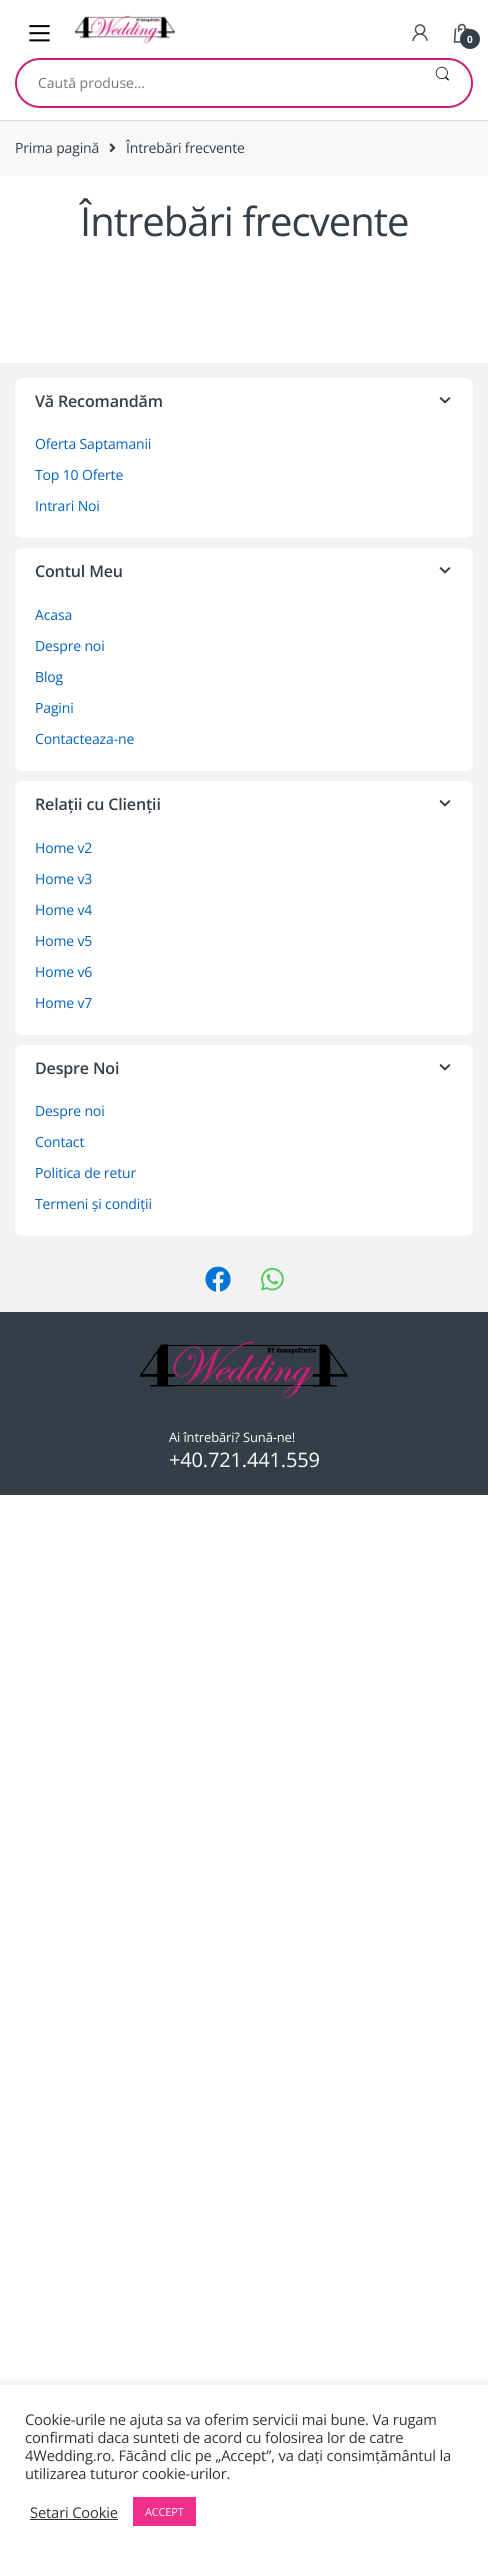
#include <cairo.h>
#include <math.h>
#include <stddef.h>

static cairo_t *ctx;

static void use_color(int r, int g, int b) {
    cairo_set_source_rgb(ctx, r / 255.0, g / 255.0, b / 255.0);
}

static void spaced_text(double x, double y, const char *s, double letter, double word) {
    cairo_move_to(ctx, x, y);
    while (*s) {
        char ch[5] = {0};
        int n = 0;
        do ch[n++] = *s++; while ((*s & 0xC0) == 0x80);
        cairo_show_text(ctx, ch);
        cairo_rel_move_to(ctx, letter + word * (*ch == ' '), 0);
    }
}

static void round_rect(double x, double y, double w, double h, double r) {
    cairo_new_sub_path(ctx);
    cairo_arc(ctx, x + w - r, y + h - r, r, 0, M_PI / 2);
    cairo_arc(ctx, x + r, y + h - r, r, M_PI / 2, M_PI);
    cairo_arc(ctx, x + r, y + r, r, M_PI, 1.5 * M_PI);
    cairo_arc(ctx, x + w - r, y + r, r, 1.5 * M_PI, 2 * M_PI);
    cairo_close_path(ctx);
}

static void shadow(double x, double y, double w, double h, double r, double blur, double alpha) {
    cairo_push_group_with_content(ctx, CAIRO_CONTENT_ALPHA);
    cairo_set_operator(ctx, CAIRO_OPERATOR_SOURCE);
    for (int i = 15; i >= -15 && fmin(w, h) + blur * i / 3 > 0; i -= 2) {
        double e = blur * i / 6;
        cairo_set_source_rgba(ctx, 0, 0, 0, alpha * erfc((i - 1) / 8.5) / 2);
        round_rect(x - e, y - e, w + 2 * e, h + 2 * e, fmax(0, fmin(r + e + blur * .6, fmin(w, h) / 2 + e)));
        cairo_fill(ctx);
    }
    cairo_pattern_t *soft = cairo_pop_group(ctx);
    cairo_mask(ctx, soft);
    cairo_pattern_destroy(soft);
}

static void picture(const char *path, double x, double y, double w, double h) {
    cairo_surface_t *image = cairo_image_surface_create_from_png(path);
    cairo_save(ctx);
    cairo_set_source_surface(ctx, image, x, y);
    cairo_rectangle(ctx, x, y, w, h);
    cairo_fill(ctx);
    cairo_restore(ctx);
    cairo_surface_destroy(image);
}

int main(void) {
    cairo_surface_t *surface = cairo_image_surface_create(CAIRO_FORMAT_RGB24, 488, 2556);
    ctx = cairo_create(surface);
    cairo_font_options_t *options = cairo_font_options_create();
    cairo_font_options_set_hint_metrics(options, CAIRO_HINT_METRICS_OFF);
    cairo_font_options_set_hint_style(options, CAIRO_HINT_STYLE_NONE);
    cairo_set_font_options(ctx, options);
    cairo_set_miter_limit(ctx, 4);
    use_color(255, 255, 255);
    cairo_paint(ctx);
    use_color(221, 221, 221);
    cairo_rectangle(ctx, 0, 120, 488, 1);
    cairo_fill(ctx);
    picture("img1.png", 29, 25, 21, 17);
    picture("img2.png", 75, 15, 100, 29);
    picture("img3.png", 412, 24, 16, 18);
    picture("img4.png", 453, 23, 16, 20);
    use_color(51, 62, 72);
    cairo_arc(ctx, 470, 39, 10, 0, 2 * M_PI);
    cairo_fill(ctx);
    cairo_select_font_face(ctx, "Open Sans", CAIRO_FONT_SLANT_NORMAL, CAIRO_FONT_WEIGHT_BOLD);
    cairo_set_font_size(ctx, 10);
    use_color(255, 255, 255);
    spaced_text(467, 43, "0", -0.15, 0);
    round_rect(16, 59, 456, 48, 24);
    use_color(206, 29, 118);
    cairo_stroke(ctx);
    picture("img5.png", 435, 66, 14, 15);
    cairo_select_font_face(ctx, "Open Sans", CAIRO_FONT_SLANT_NORMAL, CAIRO_FONT_WEIGHT_NORMAL);
    cairo_set_font_size(ctx, 14);
    use_color(117, 117, 117);
    cairo_move_to(ctx, 38, 88);
    cairo_show_text(ctx, "Caută produse…");
    use_color(248, 248, 248);
    cairo_rectangle(ctx, 0, 121, 488, 55);
    cairo_fill(ctx);
    use_color(51, 62, 72);
    spaced_text(15, 153, "Prima pagină", -0.15, 0);
    picture("img6.png", 109, 143, 7, 10);
    spaced_text(126, 153, "Întrebări frecvente", -0.15, 0);
    cairo_set_font_size(ctx, 40);
    spaced_text(80, 236, "Întrebări frecvente", -1, 0);
    use_color(242, 242, 242);
    cairo_rectangle(ctx, 0, 363, 488, 949);
    cairo_fill(ctx);
    use_color(255, 255, 255);
    round_rect(15, 378, 458, 160, 7);
    cairo_fill(ctx);
    cairo_select_font_face(ctx, "Open Sans SemiBold", CAIRO_FONT_SLANT_NORMAL, CAIRO_FONT_WEIGHT_NORMAL);
    cairo_set_font_size(ctx, 16);
    use_color(51, 62, 72);
    spaced_text(35, 407, "Vă Recomandăm", -0.15, 0);
    picture("img7.png", 439, 397, 12, 7);
    cairo_select_font_face(ctx, "Open Sans", CAIRO_FONT_SLANT_NORMAL, CAIRO_FONT_WEIGHT_NORMAL);
    cairo_set_font_size(ctx, 14);
    use_color(0, 98, 189);
    spaced_text(35, 449, "Oferta Saptamanii", -0.15, 0);
    spaced_text(35, 480, "Top 10 Oferte", -0.15, 0);
    spaced_text(35, 511, "Intrari Noi", -0.15, 0);
    use_color(255, 255, 255);
    round_rect(15, 548, 458, 223, 7);
    cairo_fill(ctx);
    cairo_select_font_face(ctx, "Open Sans SemiBold", CAIRO_FONT_SLANT_NORMAL, CAIRO_FONT_WEIGHT_NORMAL);
    cairo_set_font_size(ctx, 16);
    use_color(51, 62, 72);
    spaced_text(35, 577, "Contul Meu", -0.15, 0);
    picture("img7.png", 439, 567, 12, 7);
    cairo_select_font_face(ctx, "Open Sans", CAIRO_FONT_SLANT_NORMAL, CAIRO_FONT_WEIGHT_NORMAL);
    cairo_set_font_size(ctx, 14);
    use_color(0, 98, 189);
    spaced_text(35, 620, "Acasa", -0.15, 0);
    spaced_text(35, 651, "Despre noi", -0.15, 0);
    spaced_text(35, 682, "Blog", -0.15, 0);
    spaced_text(35, 713, "Pagini", -0.15, 0);
    spaced_text(35, 744, "Contacteaza-ne", -0.15, 0);
    use_color(255, 255, 255);
    round_rect(15, 781, 458, 254, 7);
    cairo_fill(ctx);
    cairo_select_font_face(ctx, "Open Sans SemiBold", CAIRO_FONT_SLANT_NORMAL, CAIRO_FONT_WEIGHT_NORMAL);
    cairo_set_font_size(ctx, 16);
    use_color(51, 62, 72);
    spaced_text(35, 810, "Relații cu Clienții", -0.15, 0);
    picture("img7.png", 439, 800, 12, 7);
    cairo_select_font_face(ctx, "Open Sans", CAIRO_FONT_SLANT_NORMAL, CAIRO_FONT_WEIGHT_NORMAL);
    cairo_set_font_size(ctx, 14);
    use_color(0, 98, 189);
    spaced_text(35, 853, "Home v2", -0.15, 0);
    spaced_text(35, 884, "Home v3", -0.15, 0);
    spaced_text(35, 915, "Home v4", -0.15, 0);
    spaced_text(35, 946, "Home v5", -0.15, 0);
    spaced_text(35, 977, "Home v6", -0.15, 0);
    spaced_text(35, 1008, "Home v7", -0.15, 0);
    use_color(255, 255, 255);
    round_rect(15, 1045, 458, 191, 7);
    cairo_fill(ctx);
    cairo_select_font_face(ctx, "Open Sans SemiBold", CAIRO_FONT_SLANT_NORMAL, CAIRO_FONT_WEIGHT_NORMAL);
    cairo_set_font_size(ctx, 16);
    use_color(51, 62, 72);
    spaced_text(35, 1074, "Despre Noi", -0.15, 0);
    picture("img7.png", 439, 1064, 12, 7);
    cairo_select_font_face(ctx, "Open Sans", CAIRO_FONT_SLANT_NORMAL, CAIRO_FONT_WEIGHT_NORMAL);
    cairo_set_font_size(ctx, 14);
    use_color(0, 98, 189);
    spaced_text(35, 1116, "Despre noi", -0.15, 0);
    spaced_text(35, 1147, "Contact", -0.15, 0);
    spaced_text(35, 1178, "Politica de retur", -0.15, 0);
    spaced_text(35, 1209, "Termeni și condiții", -0.15, 0);
    picture("img8.png", 205, 1266, 26, 26);
    picture("img9.png", 261, 1267, 23, 24);
    use_color(51, 62, 72);
    cairo_rectangle(ctx, 0, 1312, 488, 183);
    cairo_fill(ctx);
    picture("img10.png", 140, 1341, 208, 57);
    cairo_set_font_size(ctx, 13);
    use_color(255, 255, 255);
    spaced_text(169, 1442, "Ai întrebări? Sună-ne!", -0.15, 0);
    cairo_set_font_size(ctx, 20);
    spaced_text(169, 1467, "+40.721.441.559", -0.15, 0);
    cairo_save(ctx);
    cairo_rectangle(ctx, 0, 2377, 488, 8);
    cairo_clip(ctx);
    use_color(172, 171, 171);
    shadow(0, 2384, 488, 171, 0, 5, 0.3);
    cairo_restore(ctx);
    cairo_set_font_size(ctx, 14.7);
    use_color(51, 51, 51);
    spaced_text(25, 2425, "Cookie-urile ne ajuta sa va oferim servicii mai bune. Va rugam", -0.15, 0);
    spaced_text(25, 2443, "confirmati daca sunteti de acord cu folosirea lor de catre", -0.15, 0);
    spaced_text(25, 2461, "4Wedding.ro. Făcând clic pe „Accept”, va dați consimțământul la", -0.15, 0);
    spaced_text(25, 2479, "utilizarea tuturor cookie-urilor.", -0.15, 0);
    spaced_text(30, 2518, "Setari Cookie", -0.15, 0);
    cairo_rectangle(ctx, 30, 2519, 88, 1);
    cairo_fill(ctx);
    use_color(239, 47, 137);
    cairo_rectangle(ctx, 133, 2497, 63, 29);
    cairo_fill(ctx);
    cairo_set_font_size(ctx, 11);
    use_color(255, 255, 255);
    spaced_text(145, 2516, "ACCEPT", -0.15, 0);
    cairo_surface_write_to_png(surface, "result.png");
    cairo_font_options_destroy(options);
    cairo_destroy(ctx);
    cairo_surface_destroy(surface);
    return 0;
}
